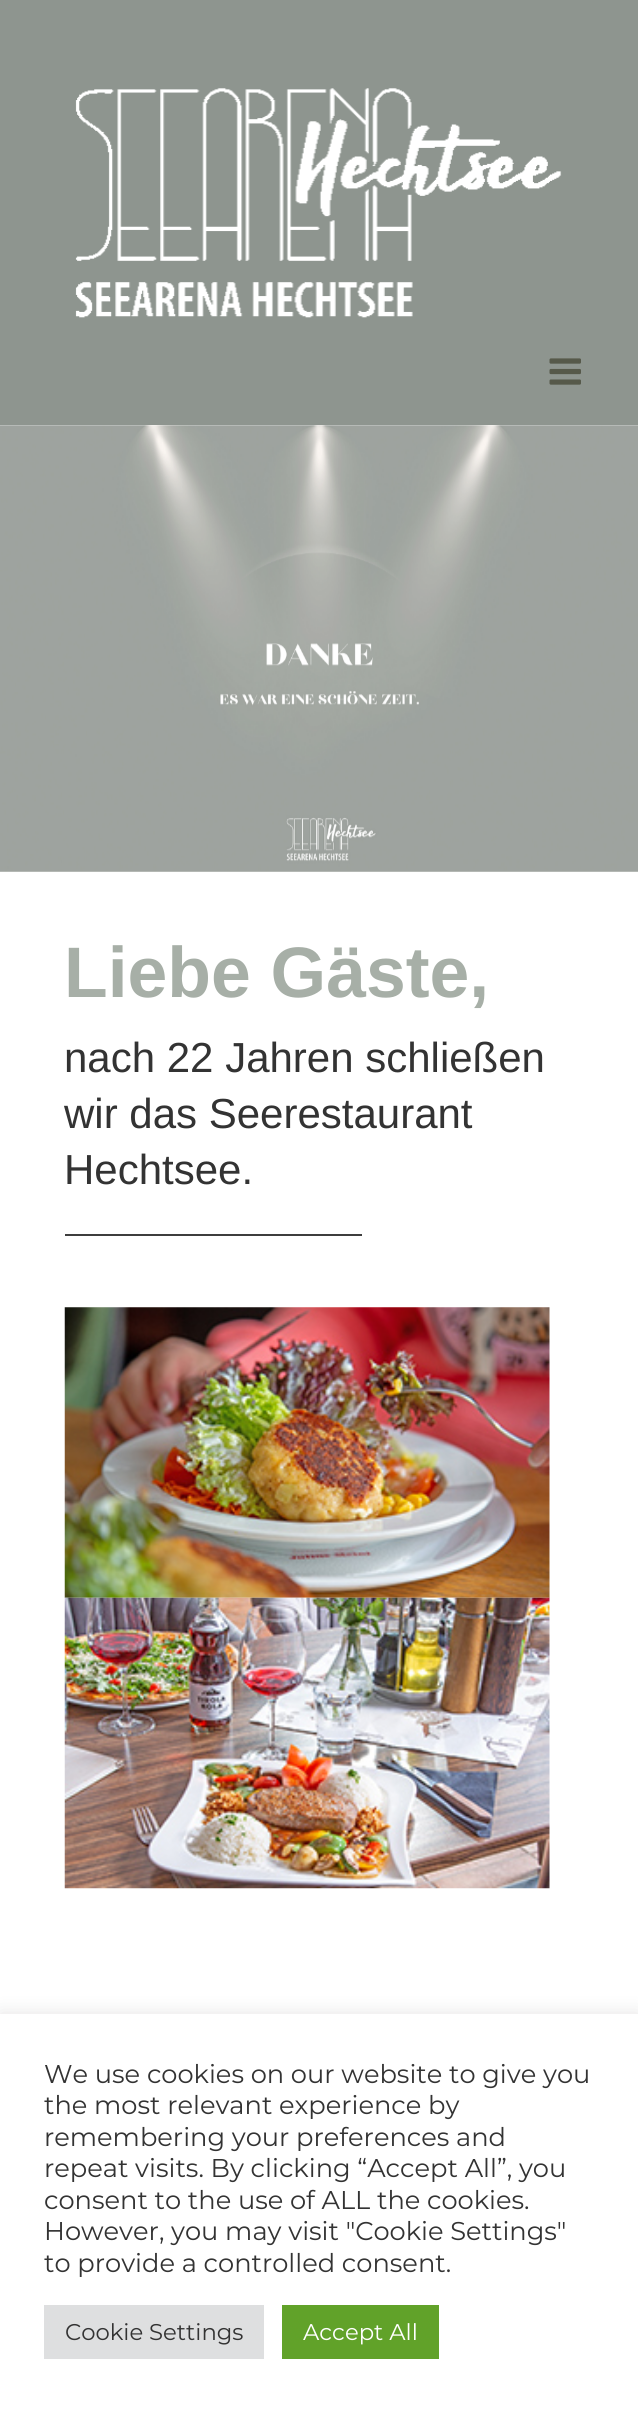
#include <cairo.h>
#include <math.h>
#include <stddef.h>

static cairo_t *ctx;

static void use_color(int r, int g, int b) {
    cairo_set_source_rgb(ctx, r / 255.0, g / 255.0, b / 255.0);
}

static void round_rect(double x, double y, double w, double h, double r) {
    cairo_new_sub_path(ctx);
    cairo_arc(ctx, x + w - r, y + h - r, r, 0, M_PI / 2);
    cairo_arc(ctx, x + r, y + h - r, r, M_PI / 2, M_PI);
    cairo_arc(ctx, x + r, y + r, r, M_PI, 1.5 * M_PI);
    cairo_arc(ctx, x + w - r, y + r, r, 1.5 * M_PI, 2 * M_PI);
    cairo_close_path(ctx);
}

static void shadow(double x, double y, double w, double h, double r, double blur, double alpha) {
    cairo_push_group_with_content(ctx, CAIRO_CONTENT_ALPHA);
    cairo_set_operator(ctx, CAIRO_OPERATOR_SOURCE);
    for (int i = 15; i >= -15 && fmin(w, h) + blur * i / 3 > 0; i -= 2) {
        double e = blur * i / 6;
        cairo_set_source_rgba(ctx, 0, 0, 0, alpha * erfc((i - 1) / 8.5) / 2);
        round_rect(x - e, y - e, w + 2 * e, h + 2 * e, fmax(0, fmin(r + e + blur * .6, fmin(w, h) / 2 + e)));
        cairo_fill(ctx);
    }
    cairo_pattern_t *soft = cairo_pop_group(ctx);
    cairo_mask(ctx, soft);
    cairo_pattern_destroy(soft);
}

static void picture(const char *path, double x, double y, double w, double h) {
    cairo_surface_t *image = cairo_image_surface_create_from_png(path);
    cairo_save(ctx);
    cairo_set_source_surface(ctx, image, x, y);
    cairo_rectangle(ctx, x, y, w, h);
    cairo_fill(ctx);
    cairo_restore(ctx);
    cairo_surface_destroy(image);
}

int main(void) {
    cairo_surface_t *surface = cairo_image_surface_create(CAIRO_FORMAT_RGB24, 638, 2411);
    ctx = cairo_create(surface);
    cairo_font_options_t *options = cairo_font_options_create();
    cairo_font_options_set_hint_metrics(options, CAIRO_HINT_METRICS_OFF);
    cairo_font_options_set_hint_style(options, CAIRO_HINT_STYLE_NONE);
    cairo_set_font_options(ctx, options);
    cairo_set_miter_limit(ctx, 4);
    use_color(255, 255, 255);
    cairo_paint(ctx);
    use_color(142, 149, 143);
    cairo_rectangle(ctx, 0, 0, 638, 425);
    cairo_fill(ctx);
    picture("img1.png", 75, 88, 487, 230);
    picture("img2.png", 549, 358, 32, 27);
    picture("img3.png", 0, 425, 638, 447);
    cairo_select_font_face(ctx, "Liberation Sans", CAIRO_FONT_SLANT_NORMAL, CAIRO_FONT_WEIGHT_BOLD);
    cairo_set_font_size(ctx, 71.5);
    use_color(167, 175, 167);
    cairo_move_to(ctx, 64, 997);
    cairo_show_text(ctx, "Liebe Gäste,");
    cairo_select_font_face(ctx, "Liberation Sans", CAIRO_FONT_SLANT_NORMAL, CAIRO_FONT_WEIGHT_NORMAL);
    cairo_set_font_size(ctx, 42);
    use_color(51, 51, 51);
    cairo_move_to(ctx, 64, 1072);
    cairo_show_text(ctx, "nach 22 Jahren schließen");
    cairo_move_to(ctx, 64, 1128);
    cairo_show_text(ctx, "wir das Seerestaurant");
    cairo_move_to(ctx, 64, 1184);
    cairo_show_text(ctx, "Hechtsee.");
    use_color(62, 62, 62);
    cairo_rectangle(ctx, 65, 1234, 297, 2);
    cairo_fill(ctx);
    picture("img4.png", 64, 1307, 486, 291);
    picture("img5.png", 64, 1597, 486, 292);
    use_color(172, 171, 171);
    shadow(0, 2013, 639, 397, 0, 9, 0.3);
    use_color(255, 255, 255);
    cairo_rectangle(ctx, 0, 2014, 638, 397);
    cairo_fill(ctx);
    cairo_select_font_face(ctx, "Montserrat", CAIRO_FONT_SLANT_NORMAL, CAIRO_FONT_WEIGHT_NORMAL);
    cairo_set_font_size(ctx, 25.7);
    use_color(51, 51, 51);
    cairo_move_to(ctx, 44, 2083);
    cairo_show_text(ctx, "We use cookies on our website to give you");
    cairo_move_to(ctx, 44, 2114);
    cairo_show_text(ctx, "the most relevant experience by");
    cairo_move_to(ctx, 44, 2146);
    cairo_show_text(ctx, "remembering your preferences and");
    cairo_move_to(ctx, 44, 2177);
    cairo_show_text(ctx, "repeat visits. By clicking “Accept All”, you");
    cairo_move_to(ctx, 44, 2209);
    cairo_show_text(ctx, "consent to the use of ALL the cookies.");
    cairo_move_to(ctx, 44, 2240);
    cairo_show_text(ctx, "However, you may visit \"Cookie Settings\"");
    cairo_move_to(ctx, 44, 2272);
    cairo_show_text(ctx, "to provide a controlled consent.");
    use_color(222, 223, 224);
    cairo_rectangle(ctx, 44, 2305, 220, 54);
    cairo_fill(ctx);
    cairo_set_font_size(ctx, 22.75);
    use_color(51, 51, 51);
    cairo_move_to(ctx, 65, 2340);
    cairo_show_text(ctx, "Cookie Settings");
    use_color(97, 162, 41);
    cairo_rectangle(ctx, 282, 2305, 157, 54);
    cairo_fill(ctx);
    use_color(255, 255, 255);
    cairo_move_to(ctx, 303, 2340);
    cairo_show_text(ctx, "Accept All");
    cairo_surface_write_to_png(surface, "result.png");
    cairo_font_options_destroy(options);
    cairo_destroy(ctx);
    cairo_surface_destroy(surface);
    return 0;
}
